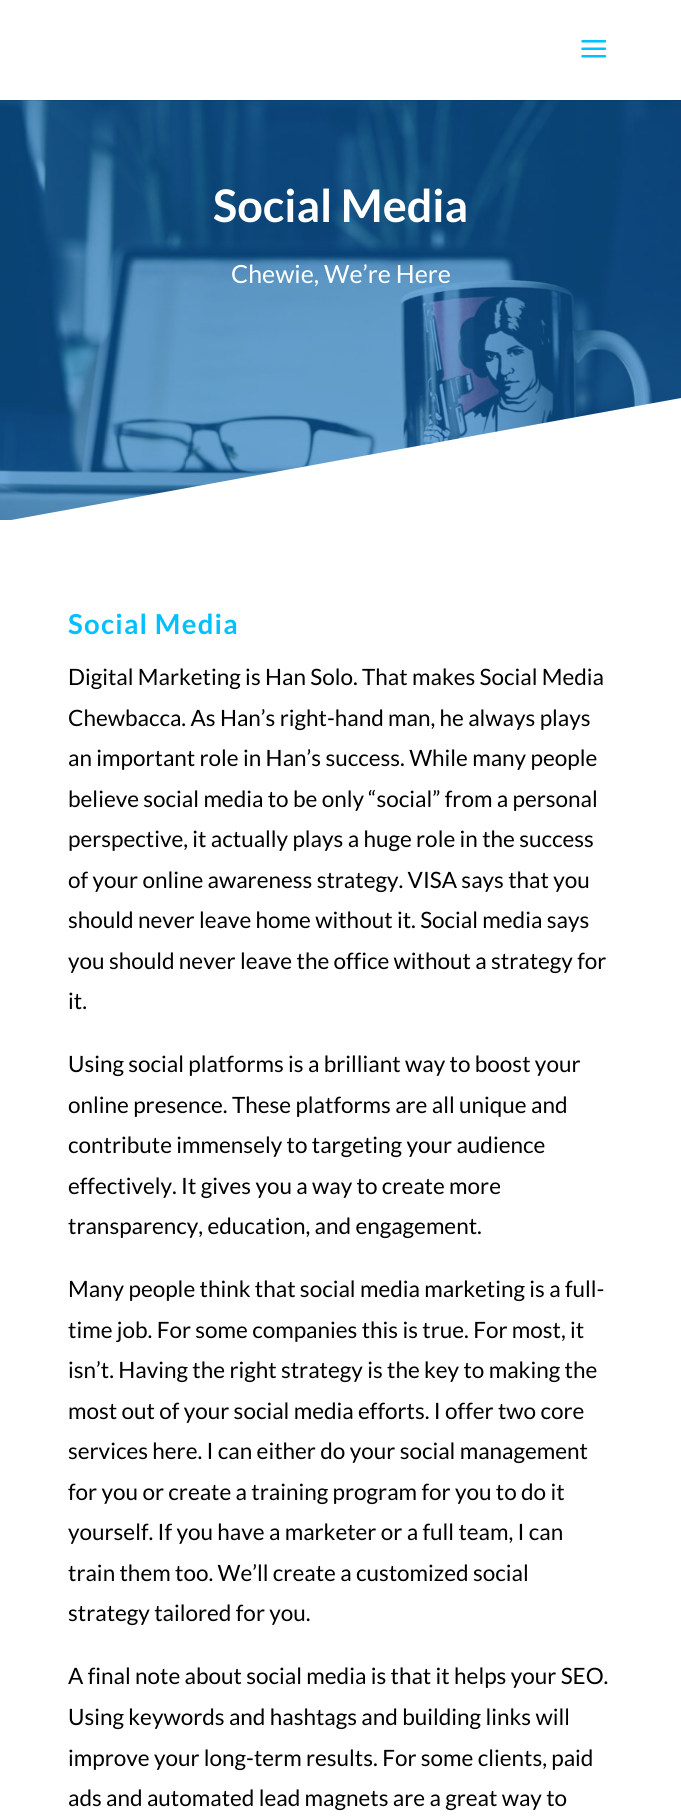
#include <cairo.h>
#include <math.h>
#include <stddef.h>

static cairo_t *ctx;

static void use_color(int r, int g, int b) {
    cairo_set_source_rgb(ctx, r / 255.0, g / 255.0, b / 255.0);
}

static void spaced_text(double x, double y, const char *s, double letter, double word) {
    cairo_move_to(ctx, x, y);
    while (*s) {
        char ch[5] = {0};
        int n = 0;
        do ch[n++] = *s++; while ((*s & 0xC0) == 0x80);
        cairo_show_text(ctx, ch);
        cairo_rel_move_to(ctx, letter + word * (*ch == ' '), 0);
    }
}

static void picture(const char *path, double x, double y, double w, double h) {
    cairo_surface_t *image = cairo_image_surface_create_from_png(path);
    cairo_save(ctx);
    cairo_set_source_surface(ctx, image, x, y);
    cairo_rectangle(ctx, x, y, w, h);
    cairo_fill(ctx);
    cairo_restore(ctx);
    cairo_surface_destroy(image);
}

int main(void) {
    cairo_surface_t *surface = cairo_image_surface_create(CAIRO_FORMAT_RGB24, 681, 1818);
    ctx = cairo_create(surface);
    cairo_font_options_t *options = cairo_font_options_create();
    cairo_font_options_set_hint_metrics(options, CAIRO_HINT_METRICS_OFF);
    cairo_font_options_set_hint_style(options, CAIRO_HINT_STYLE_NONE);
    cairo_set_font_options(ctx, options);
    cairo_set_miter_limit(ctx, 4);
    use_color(255, 255, 255);
    cairo_paint(ctx);
    picture("img2.png", 0, 100, 681, 420);
    cairo_set_source_rgba(ctx, 0, 0, 0, 0.1);
    cairo_rectangle(ctx, 0, 100, 681, 1);
    cairo_fill(ctx);
    picture("img1.png", 581, 40, 26, 18);
    cairo_select_font_face(ctx, "Lato", CAIRO_FONT_SLANT_NORMAL, CAIRO_FONT_WEIGHT_BOLD);
    cairo_set_font_size(ctx, 45);
    use_color(255, 255, 255);
    cairo_move_to(ctx, 213, 222);
    cairo_show_text(ctx, "Social Media");
    cairo_select_font_face(ctx, "Lato", CAIRO_FONT_SLANT_NORMAL, CAIRO_FONT_WEIGHT_NORMAL);
    cairo_set_font_size(ctx, 25);
    cairo_move_to(ctx, 231, 283);
    cairo_show_text(ctx, "Chewie, We’re Here");
    cairo_new_path(ctx);
    cairo_move_to(ctx, 681, 398);
    cairo_line_to(ctx, 681, 522);
    cairo_line_to(ctx, 0, 522);
    cairo_close_path(ctx);
    cairo_fill(ctx);
    cairo_select_font_face(ctx, "Lato", CAIRO_FONT_SLANT_NORMAL, CAIRO_FONT_WEIGHT_BOLD);
    cairo_set_font_size(ctx, 27.5);
    use_color(0, 192, 255);
    spaced_text(68, 634, "Social Media", 1.25, 0);
    cairo_select_font_face(ctx, "Lato", CAIRO_FONT_SLANT_NORMAL, CAIRO_FONT_WEIGHT_NORMAL);
    cairo_set_font_size(ctx, 22.5);
    use_color(0, 0, 0);
    cairo_move_to(ctx, 68, 685);
    cairo_show_text(ctx, "Digital Marketing is Han Solo. That makes Social Media");
    cairo_move_to(ctx, 68, 726);
    cairo_show_text(ctx, "Chewbacca. As Han’s right-hand man, he always plays");
    cairo_move_to(ctx, 68, 766);
    cairo_show_text(ctx, "an important role in Han’s success. While many people");
    cairo_move_to(ctx, 68, 807);
    cairo_show_text(ctx, "believe social media to be only “social” from a personal");
    cairo_move_to(ctx, 68, 847);
    cairo_show_text(ctx, "perspective, it actually plays a huge role in the success");
    cairo_move_to(ctx, 68, 888);
    cairo_show_text(ctx, "of your online awareness strategy. VISA says that you");
    cairo_move_to(ctx, 68, 928);
    cairo_show_text(ctx, "should never leave home without it. Social media says");
    cairo_move_to(ctx, 68, 969);
    cairo_show_text(ctx, "you should never leave the office without a strategy for");
    cairo_move_to(ctx, 68, 1009);
    cairo_show_text(ctx, "it.");
    cairo_move_to(ctx, 68, 1072);
    cairo_show_text(ctx, "Using social platforms is a brilliant way to boost your");
    cairo_move_to(ctx, 68, 1113);
    cairo_show_text(ctx, "online presence. These platforms are all unique and");
    cairo_move_to(ctx, 68, 1153);
    cairo_show_text(ctx, "contribute immensely to targeting your audience");
    cairo_move_to(ctx, 68, 1194);
    cairo_show_text(ctx, "effectively. It gives you a way to create more");
    cairo_move_to(ctx, 68, 1234);
    cairo_show_text(ctx, "transparency, education, and engagement.");
    cairo_move_to(ctx, 68, 1297);
    cairo_show_text(ctx, "Many people think that social media marketing is a full-");
    cairo_move_to(ctx, 68, 1338);
    cairo_show_text(ctx, "time job. For some companies this is true. For most, it");
    cairo_move_to(ctx, 68, 1378);
    cairo_show_text(ctx, "isn’t. Having the right strategy is the key to making the");
    cairo_move_to(ctx, 68, 1419);
    cairo_show_text(ctx, "most out of your social media efforts. I offer two core");
    cairo_move_to(ctx, 68, 1459);
    cairo_show_text(ctx, "services here. I can either do your social management");
    cairo_move_to(ctx, 68, 1500);
    cairo_show_text(ctx, "for you or create a training program for you to do it");
    cairo_move_to(ctx, 68, 1540);
    cairo_show_text(ctx, "yourself. If you have a marketer or a full team, I can");
    cairo_move_to(ctx, 68, 1581);
    cairo_show_text(ctx, "train them too. We’ll create a customized social");
    cairo_move_to(ctx, 68, 1621);
    cairo_show_text(ctx, "strategy tailored for you.");
    cairo_move_to(ctx, 68, 1684);
    cairo_show_text(ctx, "A final note about social media is that it helps your SEO.");
    cairo_move_to(ctx, 68, 1725);
    cairo_show_text(ctx, "Using keywords and hashtags and building links will");
    cairo_move_to(ctx, 68, 1766);
    cairo_show_text(ctx, "improve your long-term results. For some clients, paid");
    cairo_move_to(ctx, 68, 1806);
    cairo_show_text(ctx, "ads and automated lead magnets are a great way to");
    cairo_surface_write_to_png(surface, "result.png");
    cairo_font_options_destroy(options);
    cairo_destroy(ctx);
    cairo_surface_destroy(surface);
    return 0;
}
